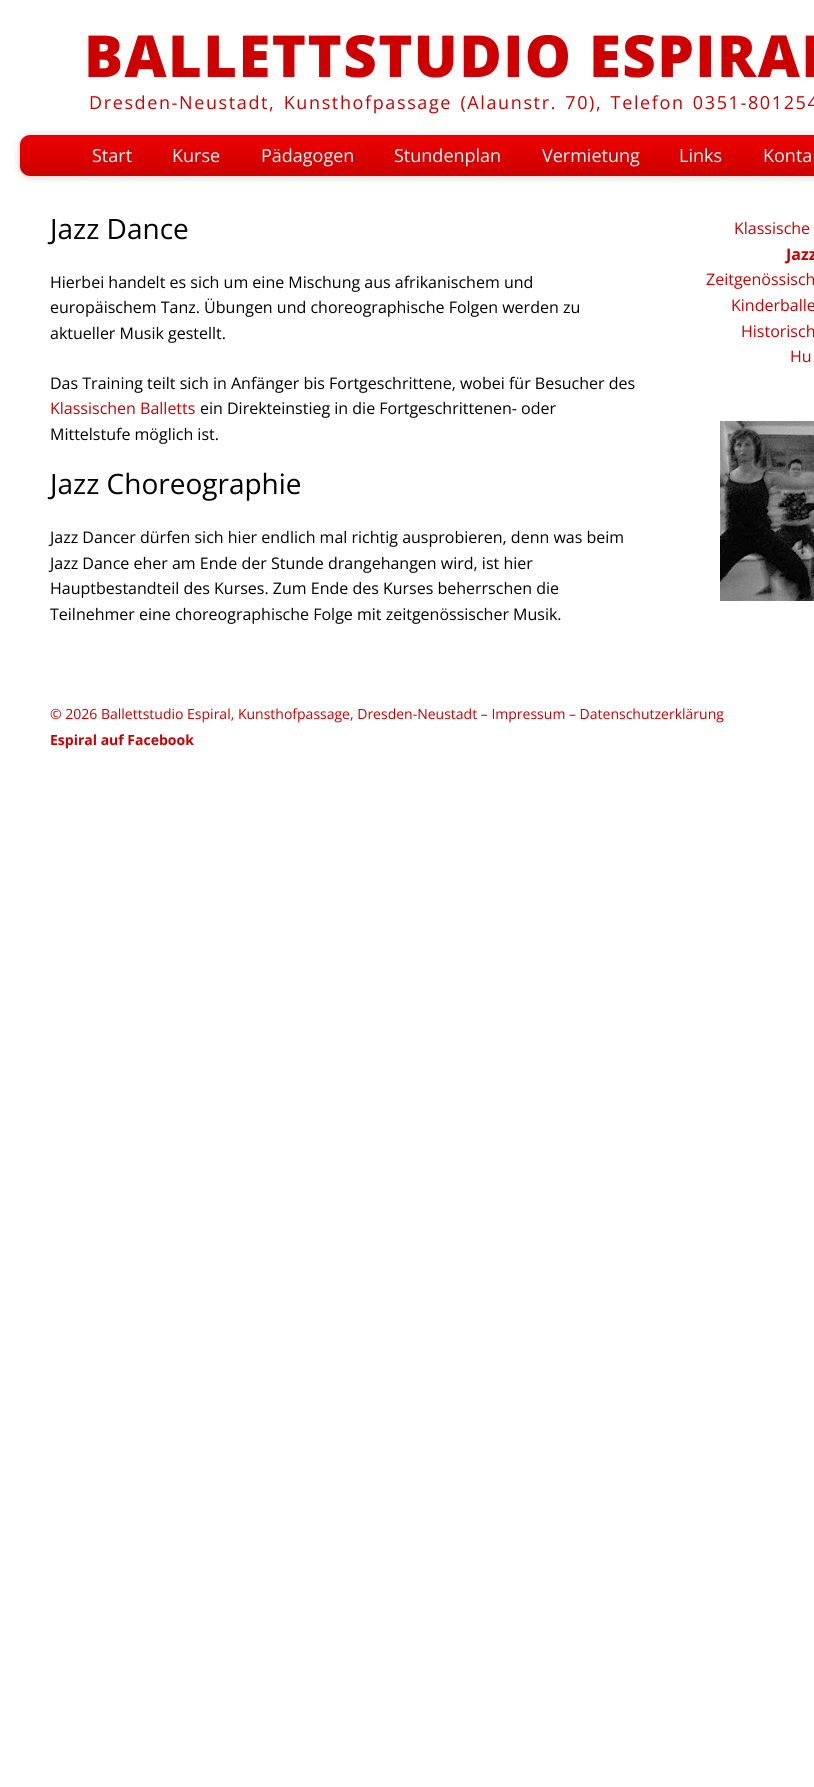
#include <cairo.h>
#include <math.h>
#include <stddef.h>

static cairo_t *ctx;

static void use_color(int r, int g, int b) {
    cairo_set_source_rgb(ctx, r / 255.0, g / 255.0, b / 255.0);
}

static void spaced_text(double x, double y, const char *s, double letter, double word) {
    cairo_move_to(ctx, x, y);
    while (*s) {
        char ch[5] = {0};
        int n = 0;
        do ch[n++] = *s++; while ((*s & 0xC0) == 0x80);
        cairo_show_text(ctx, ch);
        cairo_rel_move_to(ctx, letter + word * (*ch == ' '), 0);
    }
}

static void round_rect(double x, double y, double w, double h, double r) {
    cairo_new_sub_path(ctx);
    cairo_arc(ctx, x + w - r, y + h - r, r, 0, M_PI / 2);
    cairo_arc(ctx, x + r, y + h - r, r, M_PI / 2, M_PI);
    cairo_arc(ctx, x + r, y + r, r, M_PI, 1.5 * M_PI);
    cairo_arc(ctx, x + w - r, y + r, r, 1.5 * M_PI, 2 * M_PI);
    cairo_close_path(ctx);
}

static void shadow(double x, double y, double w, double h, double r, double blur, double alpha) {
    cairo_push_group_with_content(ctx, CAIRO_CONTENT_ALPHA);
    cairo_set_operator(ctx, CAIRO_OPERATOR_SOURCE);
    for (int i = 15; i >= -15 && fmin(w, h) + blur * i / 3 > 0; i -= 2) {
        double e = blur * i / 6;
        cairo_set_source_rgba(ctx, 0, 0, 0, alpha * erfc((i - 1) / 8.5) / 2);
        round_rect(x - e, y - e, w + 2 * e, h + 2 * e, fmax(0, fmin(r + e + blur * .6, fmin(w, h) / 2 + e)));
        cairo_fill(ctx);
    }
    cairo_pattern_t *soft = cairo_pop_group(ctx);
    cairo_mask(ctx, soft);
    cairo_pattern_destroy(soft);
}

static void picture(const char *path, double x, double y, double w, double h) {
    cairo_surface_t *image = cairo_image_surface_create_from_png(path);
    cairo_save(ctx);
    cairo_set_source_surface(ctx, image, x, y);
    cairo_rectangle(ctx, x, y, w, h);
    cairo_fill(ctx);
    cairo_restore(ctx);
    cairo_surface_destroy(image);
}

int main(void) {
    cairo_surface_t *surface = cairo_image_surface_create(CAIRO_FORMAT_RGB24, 814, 1787);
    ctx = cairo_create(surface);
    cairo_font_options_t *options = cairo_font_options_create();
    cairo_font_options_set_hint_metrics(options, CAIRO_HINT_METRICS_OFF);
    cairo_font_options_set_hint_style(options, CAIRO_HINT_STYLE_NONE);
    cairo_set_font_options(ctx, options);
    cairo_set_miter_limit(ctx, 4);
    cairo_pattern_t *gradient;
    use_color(255, 255, 255);
    cairo_paint(ctx);
    cairo_select_font_face(ctx, "Open Sans ExtraBold", CAIRO_FONT_SLANT_NORMAL, CAIRO_FONT_WEIGHT_NORMAL);
    cairo_set_font_size(ctx, 58);
    use_color(204, 0, 0);
    spaced_text(84, 77, "BALLETTSTUDIO ESPIRAL", 1.45, 0);
    cairo_select_font_face(ctx, "Open Sans", CAIRO_FONT_SLANT_NORMAL, CAIRO_FONT_WEIGHT_NORMAL);
    cairo_set_font_size(ctx, 18);
    spaced_text(89, 109, "Dresden-Neustadt, Kunsthofpassage (Alaunstr. 70), Telefon 0351-801254", 1.62, 2);
    use_color(221, 204, 204);
    shadow(20, 136, 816, 41, 10, 4, 1);
    gradient = cairo_pattern_create_linear(460, 135, 460, 176);
    cairo_pattern_add_color_stop_rgba(gradient, 0, 0.933, 0, 0, 1);
    cairo_pattern_add_color_stop_rgba(gradient, 1, 0.8, 0, 0, 1);
    cairo_set_source(ctx, gradient);
    cairo_pattern_destroy(gradient);
    round_rect(20, 135, 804, 41, 10);
    cairo_fill(ctx);
    use_color(255, 255, 255);
    cairo_move_to(ctx, 92, 162);
    cairo_show_text(ctx, "Start");
    cairo_move_to(ctx, 172, 162);
    cairo_show_text(ctx, "Kurse");
    cairo_move_to(ctx, 261, 162);
    cairo_show_text(ctx, "Pädagogen");
    cairo_move_to(ctx, 394, 162);
    cairo_show_text(ctx, "Stundenplan");
    cairo_move_to(ctx, 542, 162);
    cairo_show_text(ctx, "Vermietung");
    cairo_move_to(ctx, 679, 162);
    cairo_show_text(ctx, "Links");
    cairo_move_to(ctx, 763, 162);
    cairo_show_text(ctx, "Konta");
    cairo_set_font_size(ctx, 28);
    use_color(0, 0, 0);
    cairo_move_to(ctx, 50, 239);
    cairo_show_text(ctx, "Jazz Dance");
    cairo_set_font_size(ctx, 16);
    cairo_move_to(ctx, 50, 288);
    cairo_show_text(ctx, "Hierbei handelt es sich um eine Mischung aus afrikanischem und");
    cairo_move_to(ctx, 50, 313);
    cairo_show_text(ctx, "europäischem Tanz. Übungen und choreographische Folgen werden zu");
    cairo_move_to(ctx, 50, 339);
    cairo_show_text(ctx, "aktueller Musik gestellt.");
    cairo_move_to(ctx, 50, 389);
    cairo_show_text(ctx, "Das Training teilt sich in Anfänger bis Fortgeschrittene, wobei für Besucher des");
    use_color(204, 0, 0);
    cairo_move_to(ctx, 50, 414);
    cairo_show_text(ctx, "Klassischen Balletts");
    use_color(0, 0, 0);
    cairo_move_to(ctx, 200, 414);
    cairo_show_text(ctx, "ein Direkteinstieg in die Fortgeschrittenen- oder");
    cairo_move_to(ctx, 50, 440);
    cairo_show_text(ctx, "Mittelstufe möglich ist.");
    cairo_set_font_size(ctx, 28);
    cairo_move_to(ctx, 50, 494);
    cairo_show_text(ctx, "Jazz Choreographie");
    cairo_set_font_size(ctx, 16);
    cairo_move_to(ctx, 50, 543);
    cairo_show_text(ctx, "Jazz Dancer dürfen sich hier endlich mal richtig ausprobieren, denn was beim");
    cairo_move_to(ctx, 50, 569);
    cairo_show_text(ctx, "Jazz Dance eher am Ende der Stunde drangehangen wird, ist hier");
    cairo_move_to(ctx, 50, 594);
    cairo_show_text(ctx, "Hauptbestandteil des Kurses. Zum Ende des Kurses beherrschen die");
    cairo_move_to(ctx, 50, 620);
    cairo_show_text(ctx, "Teilnehmer eine choreographische Folge mit zeitgenössischer Musik.");
    use_color(204, 0, 0);
    cairo_move_to(ctx, 734, 234);
    cairo_show_text(ctx, "Klassische");
    cairo_select_font_face(ctx, "Open Sans", CAIRO_FONT_SLANT_NORMAL, CAIRO_FONT_WEIGHT_BOLD);
    cairo_move_to(ctx, 786, 260);
    cairo_show_text(ctx, "Jazz");
    cairo_select_font_face(ctx, "Open Sans", CAIRO_FONT_SLANT_NORMAL, CAIRO_FONT_WEIGHT_NORMAL);
    cairo_move_to(ctx, 706, 285);
    cairo_show_text(ctx, "Zeitgenössisch");
    cairo_move_to(ctx, 731, 311);
    cairo_show_text(ctx, "Kinderballe");
    cairo_move_to(ctx, 741, 337);
    cairo_show_text(ctx, "Historisch");
    cairo_move_to(ctx, 790, 362);
    cairo_show_text(ctx, "Hu");
    picture("img1.png", 720, 421, 94, 180);
    cairo_set_font_size(ctx, 14);
    cairo_move_to(ctx, 50, 719);
    cairo_show_text(ctx, "© 2026 Ballettstudio Espiral, Kunsthofpassage, Dresden-Neustadt – Impressum – Datenschutzerklärung");
    cairo_select_font_face(ctx, "Open Sans", CAIRO_FONT_SLANT_NORMAL, CAIRO_FONT_WEIGHT_BOLD);
    cairo_move_to(ctx, 50, 745);
    cairo_show_text(ctx, "Espiral auf Facebook");
    cairo_surface_write_to_png(surface, "result.png");
    cairo_font_options_destroy(options);
    cairo_destroy(ctx);
    cairo_surface_destroy(surface);
    return 0;
}
